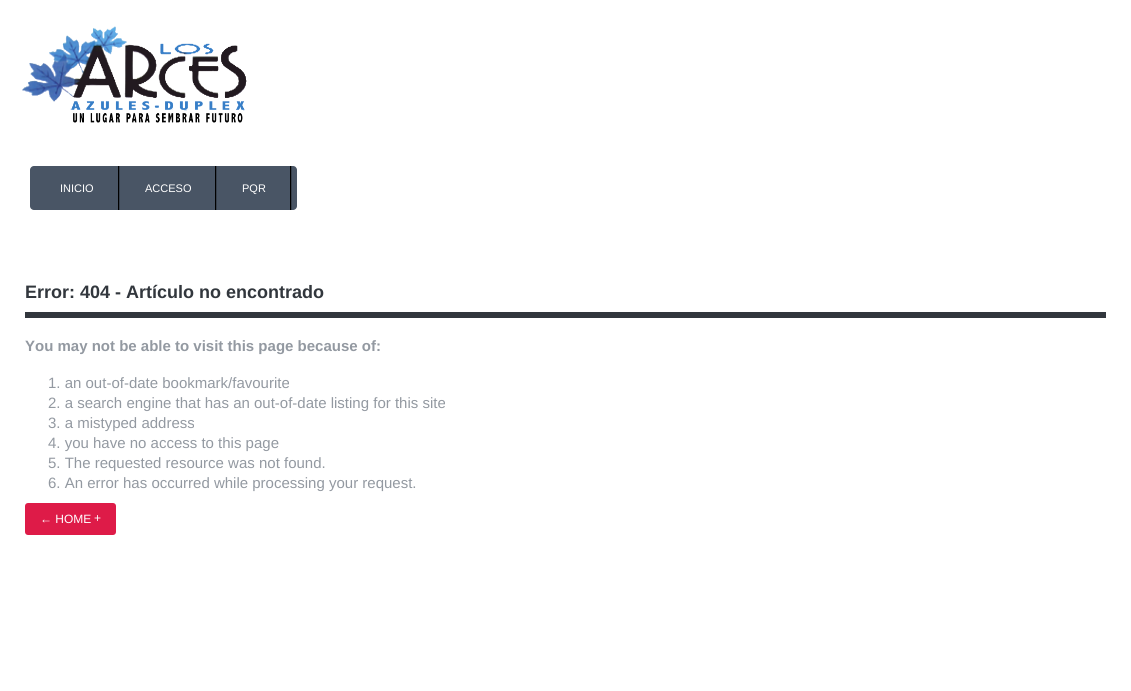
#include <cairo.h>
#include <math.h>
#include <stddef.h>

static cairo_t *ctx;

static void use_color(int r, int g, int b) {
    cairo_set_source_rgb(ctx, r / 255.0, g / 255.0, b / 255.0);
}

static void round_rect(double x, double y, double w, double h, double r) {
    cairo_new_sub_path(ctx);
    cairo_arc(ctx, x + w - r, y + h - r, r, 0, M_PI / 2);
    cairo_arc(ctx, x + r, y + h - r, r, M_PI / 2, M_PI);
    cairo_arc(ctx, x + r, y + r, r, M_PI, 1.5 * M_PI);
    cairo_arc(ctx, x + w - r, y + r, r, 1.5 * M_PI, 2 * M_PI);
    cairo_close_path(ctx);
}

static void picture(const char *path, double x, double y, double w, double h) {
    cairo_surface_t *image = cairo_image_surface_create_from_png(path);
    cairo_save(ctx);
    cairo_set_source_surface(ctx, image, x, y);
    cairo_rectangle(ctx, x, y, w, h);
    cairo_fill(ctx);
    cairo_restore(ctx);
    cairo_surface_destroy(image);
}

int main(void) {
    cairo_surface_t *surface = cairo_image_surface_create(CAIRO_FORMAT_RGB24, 1131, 691);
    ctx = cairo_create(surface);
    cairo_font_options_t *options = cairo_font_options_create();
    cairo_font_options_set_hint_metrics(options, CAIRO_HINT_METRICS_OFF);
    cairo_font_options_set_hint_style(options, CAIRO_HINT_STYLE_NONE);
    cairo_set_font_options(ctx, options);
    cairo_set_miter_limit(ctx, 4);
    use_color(255, 255, 255);
    cairo_paint(ctx);
    picture("img1.png", 22, 26, 225, 97);
    use_color(73, 85, 101);
    round_rect(30, 166, 267, 44, 4);
    cairo_fill(ctx);
    use_color(55, 64, 76);
    cairo_rectangle(ctx, 119, 166, 1, 44);
    cairo_fill(ctx);
    cairo_select_font_face(ctx, "Liberation Sans", CAIRO_FONT_SLANT_NORMAL, CAIRO_FONT_WEIGHT_NORMAL);
    cairo_set_font_size(ctx, 11);
    use_color(255, 255, 255);
    cairo_move_to(ctx, 60, 192);
    cairo_show_text(ctx, "INICIO");
    use_color(0, 0, 0);
    cairo_rectangle(ctx, 118, 166, 1, 44);
    cairo_fill(ctx);
    use_color(55, 64, 76);
    cairo_rectangle(ctx, 216, 166, 1, 44);
    cairo_fill(ctx);
    use_color(255, 255, 255);
    cairo_move_to(ctx, 145, 192);
    cairo_show_text(ctx, "ACCESO");
    use_color(0, 0, 0);
    cairo_rectangle(ctx, 215, 166, 1, 44);
    cairo_fill(ctx);
    use_color(55, 64, 76);
    cairo_rectangle(ctx, 291, 166, 1, 44);
    cairo_fill(ctx);
    use_color(255, 255, 255);
    cairo_move_to(ctx, 242, 192);
    cairo_show_text(ctx, "PQR");
    use_color(0, 0, 0);
    cairo_rectangle(ctx, 290, 166, 1, 44);
    cairo_fill(ctx);
    use_color(50, 55, 61);
    cairo_rectangle(ctx, 25, 312, 1081, 6);
    cairo_fill(ctx);
    cairo_select_font_face(ctx, "Liberation Sans", CAIRO_FONT_SLANT_NORMAL, CAIRO_FONT_WEIGHT_BOLD);
    cairo_set_font_size(ctx, 18);
    cairo_move_to(ctx, 25, 298);
    cairo_show_text(ctx, "Error: 404 - Artículo no encontrado");
    cairo_set_font_size(ctx, 15);
    use_color(147, 153, 161);
    cairo_move_to(ctx, 25, 351);
    cairo_show_text(ctx, "You may not be able to visit this page because of:");
    cairo_select_font_face(ctx, "Liberation Sans", CAIRO_FONT_SLANT_NORMAL, CAIRO_FONT_WEIGHT_NORMAL);
    cairo_move_to(ctx, 48, 388);
    cairo_show_text(ctx, "1. an out-of-date bookmark/favourite");
    cairo_move_to(ctx, 48, 408);
    cairo_show_text(ctx, "2. a search engine that has an out-of-date listing for this site");
    cairo_move_to(ctx, 48, 428);
    cairo_show_text(ctx, "3. a mistyped address");
    cairo_move_to(ctx, 48, 448);
    cairo_show_text(ctx, "4. you have no access to this page");
    cairo_move_to(ctx, 48, 468);
    cairo_show_text(ctx, "5. The requested resource was not found.");
    cairo_move_to(ctx, 48, 488);
    cairo_show_text(ctx, "6. An error has occurred while processing your request.");
    use_color(222, 27, 72);
    round_rect(25, 503, 91, 32, 3);
    cairo_fill(ctx);
    cairo_set_font_size(ctx, 12);
    use_color(255, 255, 255);
    cairo_move_to(ctx, 40, 523);
    cairo_show_text(ctx, "← HOME");
    cairo_move_to(ctx, 94, 522);
    cairo_show_text(ctx, "+");
    cairo_surface_write_to_png(surface, "result.png");
    cairo_font_options_destroy(options);
    cairo_destroy(ctx);
    cairo_surface_destroy(surface);
    return 0;
}
